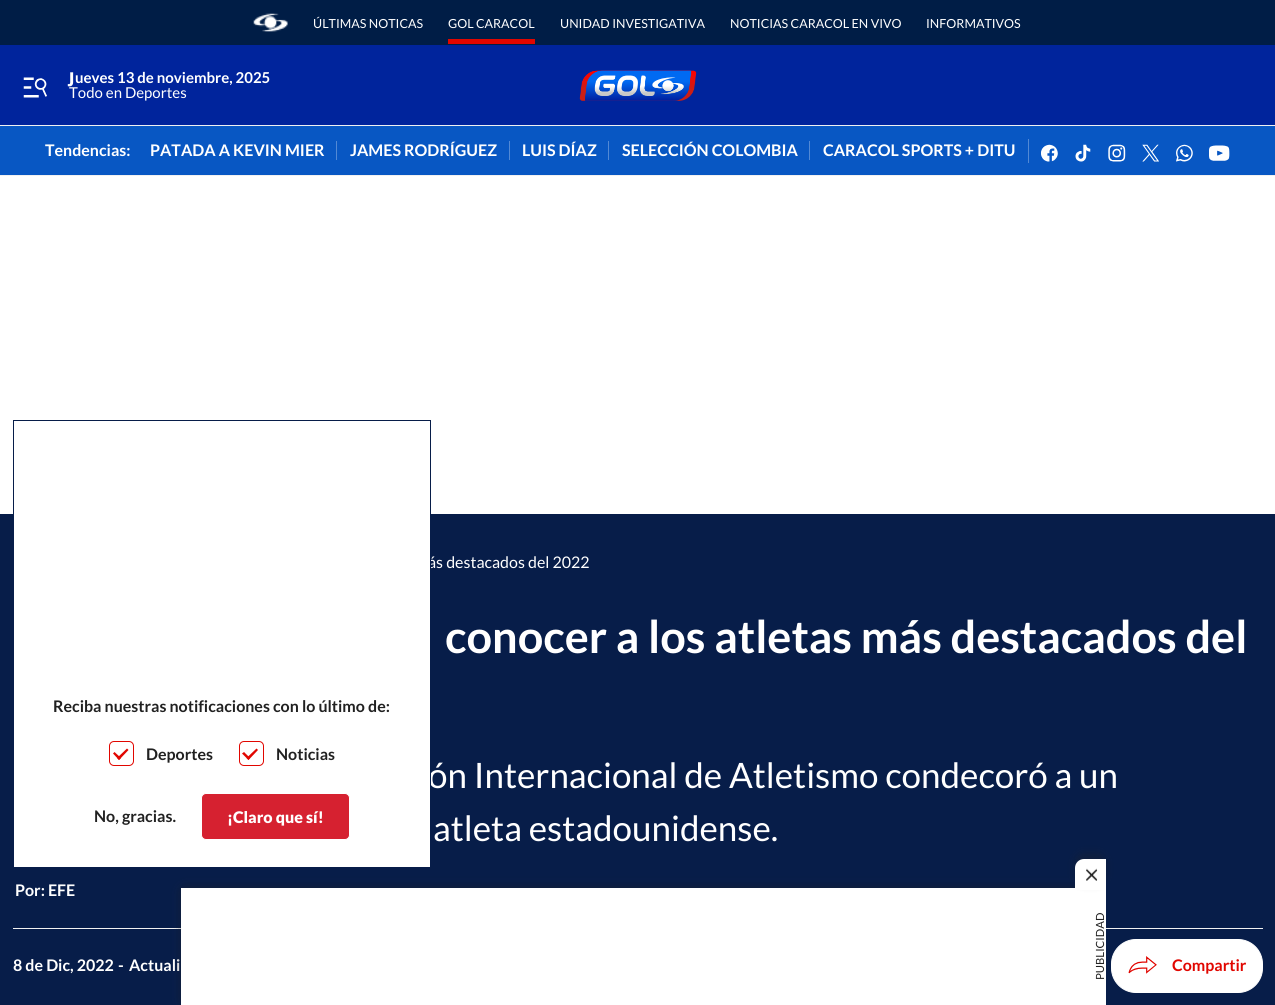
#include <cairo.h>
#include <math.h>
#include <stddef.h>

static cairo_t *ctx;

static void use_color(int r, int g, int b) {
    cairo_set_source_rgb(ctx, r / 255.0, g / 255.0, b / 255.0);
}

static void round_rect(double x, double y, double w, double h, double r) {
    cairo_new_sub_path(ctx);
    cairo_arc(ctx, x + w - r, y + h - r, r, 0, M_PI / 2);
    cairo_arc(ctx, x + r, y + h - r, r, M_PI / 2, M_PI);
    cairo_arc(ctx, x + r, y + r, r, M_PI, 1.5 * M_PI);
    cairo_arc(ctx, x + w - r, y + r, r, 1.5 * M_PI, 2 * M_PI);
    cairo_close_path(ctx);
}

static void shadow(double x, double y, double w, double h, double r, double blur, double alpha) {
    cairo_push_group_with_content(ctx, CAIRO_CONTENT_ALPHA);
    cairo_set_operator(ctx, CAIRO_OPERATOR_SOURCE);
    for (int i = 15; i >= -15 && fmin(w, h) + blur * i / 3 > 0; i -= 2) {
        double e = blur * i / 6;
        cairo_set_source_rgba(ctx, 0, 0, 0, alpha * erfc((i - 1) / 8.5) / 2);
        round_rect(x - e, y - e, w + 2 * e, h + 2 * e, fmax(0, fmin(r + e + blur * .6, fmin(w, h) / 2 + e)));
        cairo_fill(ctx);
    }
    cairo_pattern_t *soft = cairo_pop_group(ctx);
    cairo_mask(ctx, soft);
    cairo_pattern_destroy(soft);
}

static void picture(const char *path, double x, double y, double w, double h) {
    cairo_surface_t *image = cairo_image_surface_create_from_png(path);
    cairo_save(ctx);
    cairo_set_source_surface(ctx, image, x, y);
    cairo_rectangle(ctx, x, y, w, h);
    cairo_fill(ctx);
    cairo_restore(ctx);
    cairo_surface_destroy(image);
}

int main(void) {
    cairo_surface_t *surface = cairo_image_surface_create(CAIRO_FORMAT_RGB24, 1275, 1005);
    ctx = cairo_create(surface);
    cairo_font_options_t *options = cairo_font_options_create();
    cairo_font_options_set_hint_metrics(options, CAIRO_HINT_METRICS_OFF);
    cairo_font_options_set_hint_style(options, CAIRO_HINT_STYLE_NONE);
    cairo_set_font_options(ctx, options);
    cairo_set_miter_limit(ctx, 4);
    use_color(255, 255, 255);
    cairo_paint(ctx);
    use_color(0, 29, 70);
    cairo_rectangle(ctx, 0, 0, 1275, 45);
    cairo_fill(ctx);
    picture("img1.png", 253, 13, 35, 19);
    cairo_select_font_face(ctx, "Lato", CAIRO_FONT_SLANT_NORMAL, CAIRO_FONT_WEIGHT_NORMAL);
    cairo_set_font_size(ctx, 12.5);
    use_color(255, 255, 255);
    cairo_move_to(ctx, 313, 28);
    cairo_show_text(ctx, "ÚLTIMAS NOTICAS");
    cairo_move_to(ctx, 448, 28);
    cairo_show_text(ctx, "GOL CARACOL");
    use_color(225, 6, 0);
    cairo_rectangle(ctx, 448, 39, 87, 5);
    cairo_fill(ctx);
    use_color(255, 255, 255);
    cairo_move_to(ctx, 560, 28);
    cairo_show_text(ctx, "UNIDAD INVESTIGATIVA");
    cairo_move_to(ctx, 730, 28);
    cairo_show_text(ctx, "NOTICIAS CARACOL EN VIVO");
    cairo_move_to(ctx, 926, 28);
    cairo_show_text(ctx, "INFORMATIVOS");
    use_color(0, 36, 156);
    cairo_rectangle(ctx, 0, 45, 1275, 80);
    cairo_fill(ctx);
    use_color(241, 241, 241);
    cairo_rectangle(ctx, 0, 125, 1275, 1);
    cairo_fill(ctx);
    picture("img2.png", 23, 77, 24, 21);
    cairo_select_font_face(ctx, "Noto Sans Black", CAIRO_FONT_SLANT_NORMAL, CAIRO_FONT_WEIGHT_NORMAL);
    cairo_set_font_size(ctx, 15);
    use_color(255, 255, 255);
    cairo_move_to(ctx, 69, 83);
    cairo_show_text(ctx, "J");
    cairo_select_font_face(ctx, "Lato", CAIRO_FONT_SLANT_NORMAL, CAIRO_FONT_WEIGHT_BOLD);
    cairo_move_to(ctx, 75, 83);
    cairo_show_text(ctx, "ueves 13 de noviembre, 2025");
    cairo_select_font_face(ctx, "Lato", CAIRO_FONT_SLANT_NORMAL, CAIRO_FONT_WEIGHT_NORMAL);
    cairo_move_to(ctx, 69, 98);
    cairo_show_text(ctx, "Todo en Deportes");
    picture("img3.png", 579, 70, 118, 31);
    use_color(8, 87, 195);
    cairo_rectangle(ctx, 0, 126, 1275, 49);
    cairo_fill(ctx);
    use_color(241, 241, 241);
    cairo_rectangle(ctx, 0, 175, 1275, 1);
    cairo_fill(ctx);
    cairo_select_font_face(ctx, "Lato", CAIRO_FONT_SLANT_NORMAL, CAIRO_FONT_WEIGHT_BOLD);
    cairo_set_font_size(ctx, 16);
    use_color(255, 255, 255);
    cairo_move_to(ctx, 45, 156);
    cairo_show_text(ctx, "Tendencias:");
    cairo_move_to(ctx, 150, 156);
    cairo_show_text(ctx, "PATADA A KEVIN MIER");
    use_color(82, 137, 213);
    cairo_rectangle(ctx, 336, 141, 1, 19);
    cairo_fill(ctx);
    use_color(255, 255, 255);
    cairo_move_to(ctx, 350, 156);
    cairo_show_text(ctx, "JAMES RODRÍGUEZ");
    use_color(82, 137, 213);
    cairo_rectangle(ctx, 509, 141, 1, 19);
    cairo_fill(ctx);
    use_color(255, 255, 255);
    cairo_move_to(ctx, 522, 156);
    cairo_show_text(ctx, "LUIS DÍAZ");
    use_color(82, 137, 213);
    cairo_rectangle(ctx, 608, 141, 1, 19);
    cairo_fill(ctx);
    use_color(255, 255, 255);
    cairo_move_to(ctx, 622, 156);
    cairo_show_text(ctx, "SELECCIÓN COLOMBIA");
    use_color(82, 137, 213);
    cairo_rectangle(ctx, 809, 141, 1, 19);
    cairo_fill(ctx);
    use_color(255, 255, 255);
    cairo_move_to(ctx, 823, 156);
    cairo_show_text(ctx, "CARACOL SPORTS + DITU");
    use_color(82, 137, 213);
    cairo_rectangle(ctx, 1028, 139, 1, 24);
    cairo_fill(ctx);
    picture("img4.png", 1041, 144, 17, 18);
    picture("img5.png", 1075, 144, 16, 18);
    picture("img6.png", 1108, 144, 18, 18);
    picture("img7.png", 1142, 144, 17, 18);
    picture("img8.png", 1176, 144, 17, 18);
    picture("img9.png", 1209, 145, 21, 16);
    use_color(7, 29, 73);
    cairo_rectangle(ctx, 0, 514, 1275, 491);
    cairo_fill(ctx);
    cairo_select_font_face(ctx, "Lato", CAIRO_FONT_SLANT_NORMAL, CAIRO_FONT_WEIGHT_NORMAL);
    use_color(255, 255, 255);
    cairo_move_to(ctx, 428, 568);
    cairo_show_text(ctx, "ás destacados del 2022");
    cairo_select_font_face(ctx, "Lato", CAIRO_FONT_SLANT_NORMAL, CAIRO_FONT_WEIGHT_BOLD);
    cairo_set_font_size(ctx, 45);
    cairo_move_to(ctx, 445, 653);
    cairo_show_text(ctx, "conocer a los atletas más destacados del");
    cairo_select_font_face(ctx, "Lato", CAIRO_FONT_SLANT_NORMAL, CAIRO_FONT_WEIGHT_NORMAL);
    cairo_set_font_size(ctx, 35);
    cairo_move_to(ctx, 428, 788);
    cairo_show_text(ctx, "ón Internacional de Atletismo condecoró a un");
    cairo_move_to(ctx, 433, 841);
    cairo_show_text(ctx, "atleta estadounidense.");
    cairo_select_font_face(ctx, "Lato", CAIRO_FONT_SLANT_NORMAL, CAIRO_FONT_WEIGHT_BOLD);
    cairo_set_font_size(ctx, 16);
    cairo_move_to(ctx, 15, 896);
    cairo_show_text(ctx, "Por: EFE");
    use_color(241, 241, 241);
    cairo_rectangle(ctx, 13, 928, 1250, 1);
    cairo_fill(ctx);
    use_color(255, 255, 255);
    cairo_move_to(ctx, 13, 971);
    cairo_show_text(ctx, "8 de Dic, 2022");
    cairo_move_to(ctx, 118, 971);
    cairo_show_text(ctx, "-");
    cairo_move_to(ctx, 129, 971);
    cairo_show_text(ctx, "Actuali");
    round_rect(1111.5, 939.5, 151, 53, 24.5);
    cairo_fill_preserve(ctx);
    cairo_set_line_width(ctx, 1);
    cairo_stroke(ctx);
    picture("img10.png", 1128, 956, 29, 18);
    use_color(225, 6, 0);
    cairo_move_to(ctx, 1172, 971);
    cairo_show_text(ctx, "Compartir");
    use_color(255, 255, 255);
    cairo_rectangle(ctx, 14, 514, 416, 353);
    cairo_fill(ctx);
    cairo_rectangle(ctx, 13.5, 420.5, 417, 447);
    use_color(7, 29, 73);
    cairo_stroke(ctx);
    use_color(33, 33, 33);
    cairo_move_to(ctx, 53, 712);
    cairo_show_text(ctx, "Reciba nuestras notificaciones con lo último de:");
    round_rect(109.5, 741.5, 24, 24, 4.5);
    use_color(225, 6, 0);
    cairo_stroke(ctx);
    cairo_new_path(ctx);
    cairo_move_to(ctx, 127, 748.5);
    cairo_line_to(ctx, 128.5, 750);
    cairo_line_to(ctx, 119, 760);
    cairo_line_to(ctx, 117, 758);
    cairo_close_path(ctx);
    cairo_fill(ctx);
    cairo_new_path(ctx);
    cairo_move_to(ctx, 114.5, 752);
    cairo_line_to(ctx, 121, 758);
    cairo_line_to(ctx, 119, 760);
    cairo_line_to(ctx, 113, 753.5);
    cairo_close_path(ctx);
    cairo_fill(ctx);
    use_color(33, 33, 33);
    cairo_move_to(ctx, 146, 760);
    cairo_show_text(ctx, "Deportes");
    round_rect(239.5, 741.5, 24, 24, 4.5);
    use_color(225, 6, 0);
    cairo_stroke(ctx);
    cairo_new_path(ctx);
    cairo_move_to(ctx, 256.5, 748.5);
    cairo_line_to(ctx, 258, 750);
    cairo_line_to(ctx, 248.5, 760);
    cairo_line_to(ctx, 246.5, 758);
    cairo_close_path(ctx);
    cairo_fill(ctx);
    cairo_new_path(ctx);
    cairo_move_to(ctx, 244, 752);
    cairo_line_to(ctx, 250, 758);
    cairo_line_to(ctx, 248.5, 760);
    cairo_line_to(ctx, 242, 753.5);
    cairo_close_path(ctx);
    cairo_fill(ctx);
    use_color(33, 33, 33);
    cairo_move_to(ctx, 276, 760);
    cairo_show_text(ctx, "Noticias");
    cairo_move_to(ctx, 94, 822);
    cairo_show_text(ctx, "No, gracias.");
    use_color(214, 33, 48);
    round_rect(201.5, 793.5, 148, 46, 4.5);
    cairo_fill_preserve(ctx);
    use_color(255, 255, 255);
    cairo_stroke(ctx);
    cairo_select_font_face(ctx, "Lato Black", CAIRO_FONT_SLANT_NORMAL, CAIRO_FONT_WEIGHT_NORMAL);
    cairo_move_to(ctx, 227, 823);
    cairo_show_text(ctx, "¡Claro que sí!");
    use_color(33, 33, 33);
    shadow(185, 891, 905, 110, 0, 6, 1);
    use_color(255, 255, 255);
    cairo_rectangle(ctx, 181, 888, 909, 117);
    cairo_fill(ctx);
    cairo_rectangle(ctx, 1090, 890, 16, 115);
    cairo_fill(ctx);
    use_color(33, 33, 33);
    shadow(1075, 853, 31, 31, 9, 4, 0.3);
    use_color(255, 255, 255);
    cairo_new_path(ctx);
    cairo_move_to(ctx, 1084, 859);
    cairo_line_to(ctx, 1106, 859);
    cairo_line_to(ctx, 1106, 890);
    cairo_line_to(ctx, 1075, 890);
    cairo_line_to(ctx, 1075, 868);
    cairo_curve_to(ctx, 1075, 863, 1079, 859, 1084, 859);
    cairo_close_path(ctx);
    cairo_fill(ctx);
    picture("img11.png", 1086, 868, 12, 13);
    cairo_select_font_face(ctx, "Lato", CAIRO_FONT_SLANT_NORMAL, CAIRO_FONT_WEIGHT_NORMAL);
    cairo_set_font_size(ctx, 11.25);
    use_color(33, 33, 33);
    cairo_save(ctx);
    cairo_translate(ctx, 1104, 980);
    cairo_rotate(ctx, -90 * M_PI / 180);
    cairo_move_to(ctx, 0, 0);
    cairo_show_text(ctx, "PUBLICIDAD");
    cairo_restore(ctx);
    cairo_surface_write_to_png(surface, "result.png");
    cairo_font_options_destroy(options);
    cairo_destroy(ctx);
    cairo_surface_destroy(surface);
    return 0;
}
